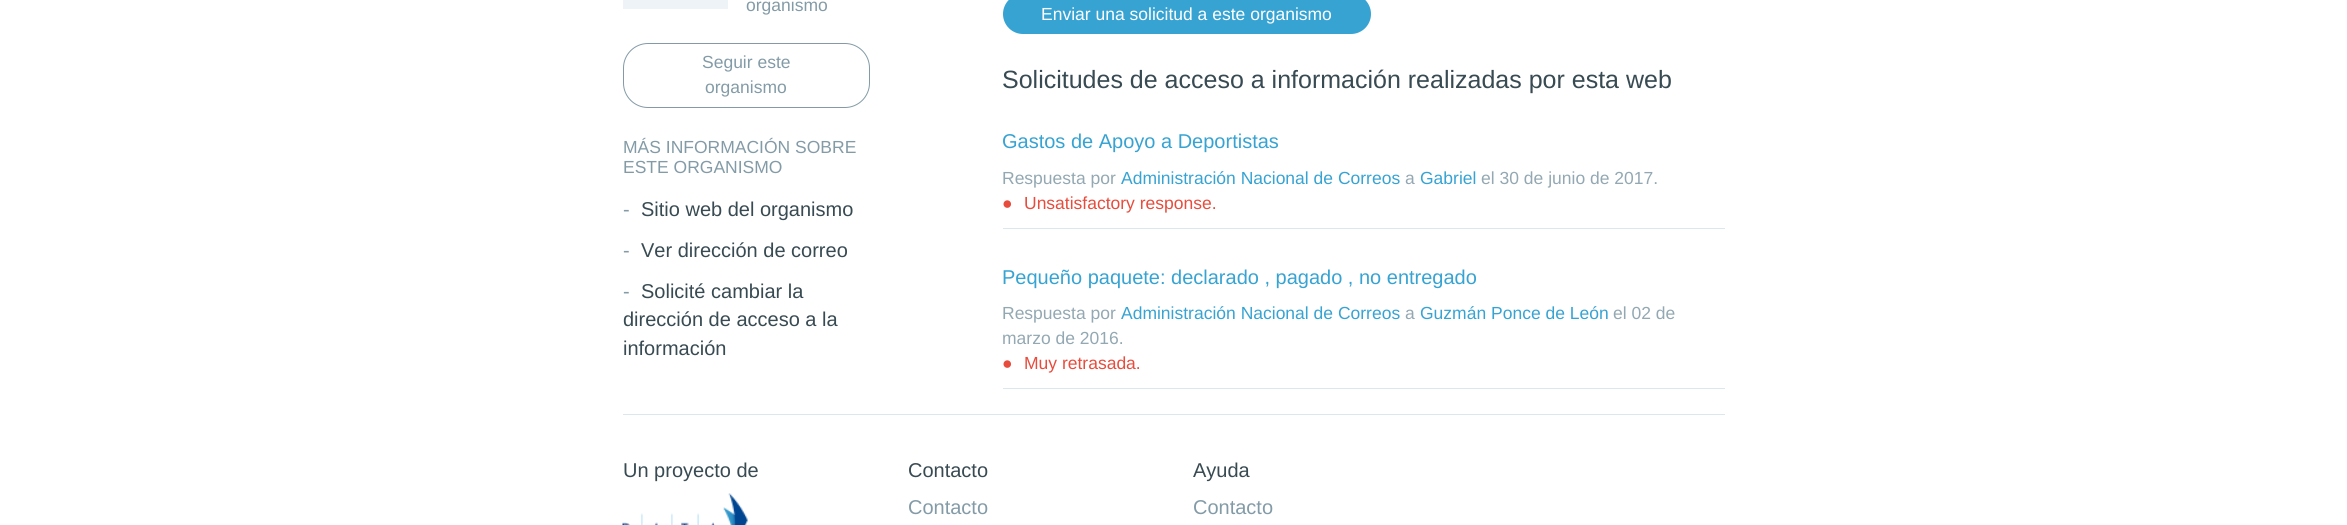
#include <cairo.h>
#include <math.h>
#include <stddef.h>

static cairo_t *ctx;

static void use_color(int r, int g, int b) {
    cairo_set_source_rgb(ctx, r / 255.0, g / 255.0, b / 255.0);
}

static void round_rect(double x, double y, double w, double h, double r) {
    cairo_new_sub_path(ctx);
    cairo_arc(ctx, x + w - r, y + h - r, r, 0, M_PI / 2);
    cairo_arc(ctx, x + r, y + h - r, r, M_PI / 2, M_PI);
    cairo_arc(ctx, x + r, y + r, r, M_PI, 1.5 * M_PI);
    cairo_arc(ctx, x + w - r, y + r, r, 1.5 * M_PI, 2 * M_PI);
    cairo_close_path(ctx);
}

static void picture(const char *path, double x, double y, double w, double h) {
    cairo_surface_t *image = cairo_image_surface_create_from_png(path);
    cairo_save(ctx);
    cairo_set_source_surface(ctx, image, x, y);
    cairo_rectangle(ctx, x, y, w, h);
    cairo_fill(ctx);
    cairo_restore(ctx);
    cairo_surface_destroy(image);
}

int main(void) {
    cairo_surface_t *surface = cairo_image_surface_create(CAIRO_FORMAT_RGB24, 2347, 525);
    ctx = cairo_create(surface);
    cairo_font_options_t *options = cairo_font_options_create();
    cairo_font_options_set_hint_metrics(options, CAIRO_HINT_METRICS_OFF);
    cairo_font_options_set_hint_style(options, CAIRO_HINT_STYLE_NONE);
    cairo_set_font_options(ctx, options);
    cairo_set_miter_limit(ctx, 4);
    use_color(255, 255, 255);
    cairo_paint(ctx);
    use_color(237, 243, 246);
    cairo_rectangle(ctx, 623, 0, 105, 9);
    cairo_fill(ctx);
    cairo_select_font_face(ctx, "Liberation Sans", CAIRO_FONT_SLANT_NORMAL, CAIRO_FONT_WEIGHT_NORMAL);
    cairo_set_font_size(ctx, 17.5);
    use_color(131, 155, 167);
    cairo_move_to(ctx, 746, 11);
    cairo_show_text(ctx, "organismo");
    round_rect(623.5, 43.5, 246, 64, 24.5);
    cairo_set_line_width(ctx, 1);
    cairo_stroke(ctx);
    cairo_move_to(ctx, 702, 68);
    cairo_show_text(ctx, "Seguir este");
    cairo_move_to(ctx, 705, 93);
    cairo_show_text(ctx, "organismo");
    cairo_move_to(ctx, 623, 153);
    cairo_show_text(ctx, "MÁS INFORMACIÓN SOBRE");
    cairo_move_to(ctx, 623, 173);
    cairo_show_text(ctx, "ESTE ORGANISMO");
    cairo_set_font_size(ctx, 20);
    cairo_move_to(ctx, 623, 216);
    cairo_show_text(ctx, "-");
    use_color(56, 74, 82);
    cairo_move_to(ctx, 641, 216);
    cairo_show_text(ctx, "Sitio web del organismo");
    use_color(131, 155, 167);
    cairo_move_to(ctx, 623, 257);
    cairo_show_text(ctx, "-");
    use_color(56, 74, 82);
    cairo_move_to(ctx, 641, 257);
    cairo_show_text(ctx, "Ver dirección de correo");
    use_color(131, 155, 167);
    cairo_move_to(ctx, 623, 298);
    cairo_show_text(ctx, "-");
    use_color(56, 74, 82);
    cairo_move_to(ctx, 641, 298);
    cairo_show_text(ctx, "Solicité cambiar la");
    cairo_move_to(ctx, 623, 326);
    cairo_show_text(ctx, "dirección de acceso a la");
    cairo_move_to(ctx, 623, 355);
    cairo_show_text(ctx, "información");
    use_color(54, 163, 211);
    round_rect(1003, -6, 368, 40, 20);
    cairo_fill(ctx);
    cairo_set_font_size(ctx, 17.5);
    use_color(255, 255, 255);
    cairo_move_to(ctx, 1041, 20);
    cairo_show_text(ctx, "Enviar una solicitud a este organismo");
    cairo_set_font_size(ctx, 25);
    use_color(56, 74, 82);
    cairo_move_to(ctx, 1002, 88);
    cairo_show_text(ctx, "Solicitudes de acceso a información realizadas por esta web");
    use_color(219, 231, 237);
    cairo_rectangle(ctx, 1003, 228, 722, 1);
    cairo_fill(ctx);
    cairo_set_font_size(ctx, 20);
    use_color(54, 163, 211);
    cairo_move_to(ctx, 1002, 148);
    cairo_show_text(ctx, "Gastos de Apoyo a Deportistas");
    cairo_set_font_size(ctx, 17.5);
    use_color(147, 168, 178);
    cairo_move_to(ctx, 1002, 184);
    cairo_show_text(ctx, "Respuesta por");
    use_color(54, 163, 211);
    cairo_move_to(ctx, 1121, 184);
    cairo_show_text(ctx, "Administración Nacional de Correos");
    use_color(147, 168, 178);
    cairo_move_to(ctx, 1405, 184);
    cairo_show_text(ctx, "a");
    use_color(54, 163, 211);
    cairo_move_to(ctx, 1420, 184);
    cairo_show_text(ctx, "Gabriel");
    use_color(147, 168, 178);
    cairo_move_to(ctx, 1481, 184);
    cairo_show_text(ctx, "el 30 de junio de 2017.");
    use_color(231, 76, 60);
    cairo_move_to(ctx, 1002, 209);
    cairo_show_text(ctx, "●");
    cairo_move_to(ctx, 1024, 209);
    cairo_show_text(ctx, "Unsatisfactory response.");
    use_color(219, 231, 237);
    cairo_rectangle(ctx, 1003, 388, 722, 1);
    cairo_fill(ctx);
    cairo_set_font_size(ctx, 20);
    use_color(54, 163, 211);
    cairo_move_to(ctx, 1002, 284);
    cairo_show_text(ctx, "Pequeño paquete: declarado , pagado , no entregado");
    cairo_set_font_size(ctx, 17.5);
    use_color(147, 168, 178);
    cairo_move_to(ctx, 1002, 319);
    cairo_show_text(ctx, "Respuesta por");
    use_color(54, 163, 211);
    cairo_move_to(ctx, 1121, 319);
    cairo_show_text(ctx, "Administración Nacional de Correos");
    use_color(147, 168, 178);
    cairo_move_to(ctx, 1405, 319);
    cairo_show_text(ctx, "a");
    use_color(54, 163, 211);
    cairo_move_to(ctx, 1420, 319);
    cairo_show_text(ctx, "Guzmán Ponce de León");
    use_color(147, 168, 178);
    cairo_move_to(ctx, 1613, 319);
    cairo_show_text(ctx, "el 02 de");
    cairo_move_to(ctx, 1002, 344);
    cairo_show_text(ctx, "marzo de 2016.");
    use_color(231, 76, 60);
    cairo_move_to(ctx, 1002, 369);
    cairo_show_text(ctx, "●");
    cairo_move_to(ctx, 1024, 369);
    cairo_show_text(ctx, "Muy retrasada.");
    use_color(219, 231, 237);
    cairo_rectangle(ctx, 623, 414, 1102, 1);
    cairo_fill(ctx);
    cairo_set_font_size(ctx, 20);
    use_color(56, 74, 82);
    cairo_move_to(ctx, 623, 477);
    cairo_show_text(ctx, "Un proyecto de");
    picture("img1.png", 622, 493, 126, 32);
    cairo_move_to(ctx, 908, 477);
    cairo_show_text(ctx, "Contacto");
    use_color(131, 155, 167);
    cairo_move_to(ctx, 908, 514);
    cairo_show_text(ctx, "Contacto");
    use_color(56, 74, 82);
    cairo_move_to(ctx, 1193, 477);
    cairo_show_text(ctx, "Ayuda");
    use_color(131, 155, 167);
    cairo_move_to(ctx, 1193, 514);
    cairo_show_text(ctx, "Contacto");
    cairo_surface_write_to_png(surface, "result.png");
    cairo_font_options_destroy(options);
    cairo_destroy(ctx);
    cairo_surface_destroy(surface);
    return 0;
}
